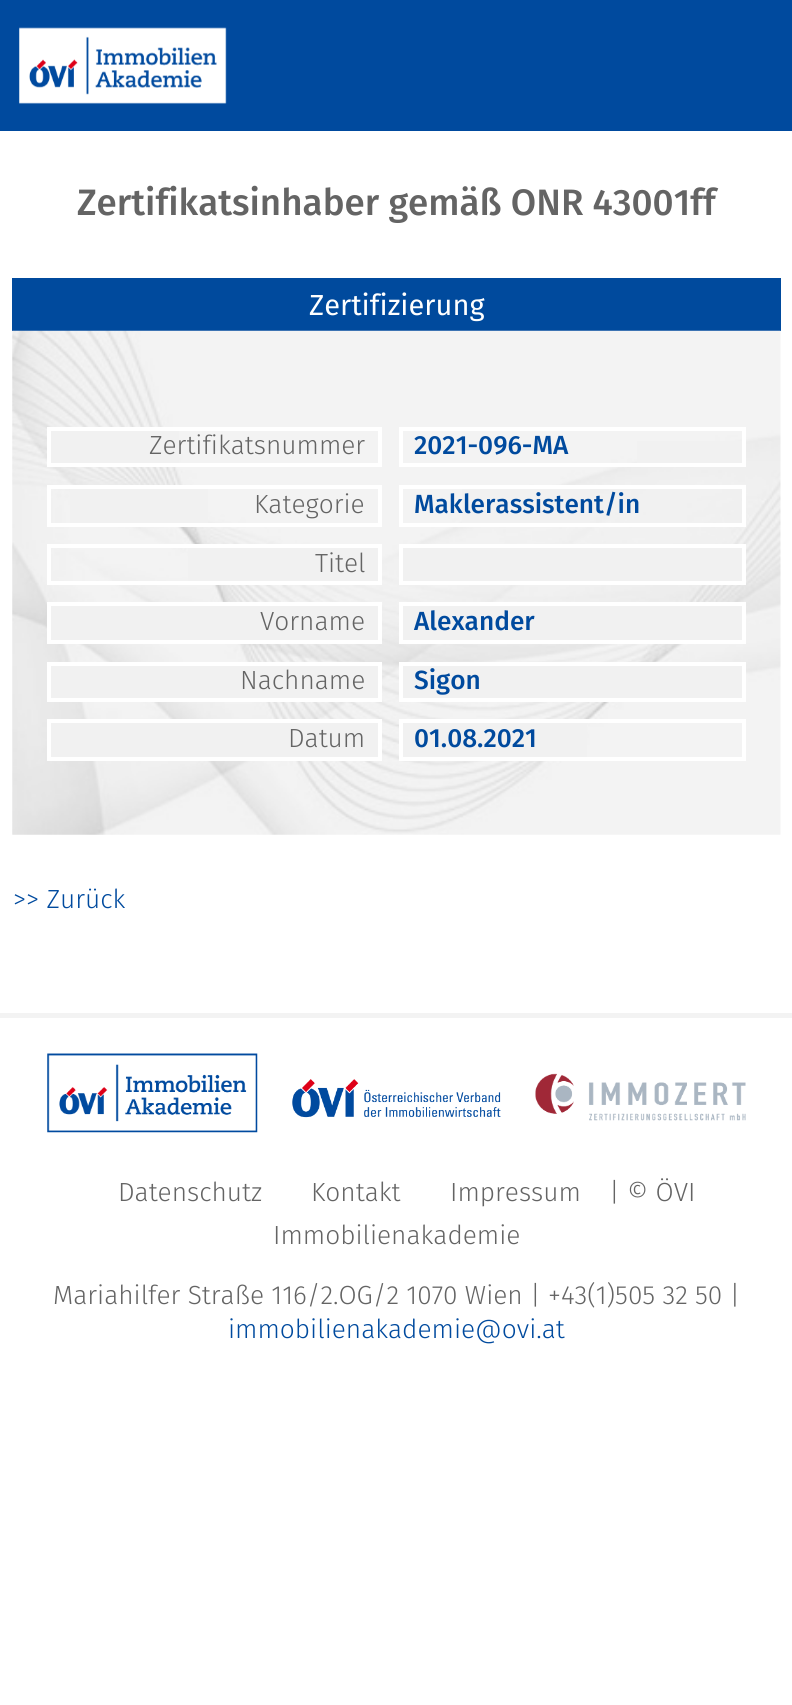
#include <cairo.h>
#include <math.h>
#include <stddef.h>

static cairo_t *ctx;

static void use_color(int r, int g, int b) {
    cairo_set_source_rgb(ctx, r / 255.0, g / 255.0, b / 255.0);
}

static void picture(const char *path, double x, double y, double w, double h) {
    cairo_surface_t *image = cairo_image_surface_create_from_png(path);
    cairo_save(ctx);
    cairo_set_source_surface(ctx, image, x, y);
    cairo_rectangle(ctx, x, y, w, h);
    cairo_fill(ctx);
    cairo_restore(ctx);
    cairo_surface_destroy(image);
}

int main(void) {
    cairo_surface_t *surface = cairo_image_surface_create(CAIRO_FORMAT_RGB24, 792, 1705);
    ctx = cairo_create(surface);
    cairo_font_options_t *options = cairo_font_options_create();
    cairo_font_options_set_hint_metrics(options, CAIRO_HINT_METRICS_OFF);
    cairo_font_options_set_hint_style(options, CAIRO_HINT_STYLE_NONE);
    cairo_set_font_options(ctx, options);
    cairo_set_miter_limit(ctx, 4);
    use_color(255, 255, 255);
    cairo_paint(ctx);
    use_color(0, 74, 158);
    cairo_rectangle(ctx, 0, 0, 792, 131);
    cairo_fill(ctx);
    picture("img1.png", 19, 27, 208, 77);
    cairo_select_font_face(ctx, "Fira Sans Medium", CAIRO_FONT_SLANT_NORMAL, CAIRO_FONT_WEIGHT_NORMAL);
    cairo_set_font_size(ctx, 36.75);
    use_color(100, 100, 100);
    cairo_move_to(ctx, 77, 215);
    cairo_show_text(ctx, "Zertifikatsinhaber gemäß ONR 43001ff");
    use_color(0, 74, 157);
    cairo_rectangle(ctx, 12, 278, 769, 53);
    cairo_fill(ctx);
    cairo_select_font_face(ctx, "Fira Sans", CAIRO_FONT_SLANT_NORMAL, CAIRO_FONT_WEIGHT_NORMAL);
    cairo_set_font_size(ctx, 29);
    use_color(255, 255, 255);
    cairo_move_to(ctx, 309, 315);
    cairo_show_text(ctx, "Zertifizierung");
    picture("img2.png", 12, 330, 769, 505);
    use_color(241, 241, 241);
    cairo_rectangle(ctx, 51, 431, 128, 32);
    cairo_fill(ctx);
    cairo_rectangle(ctx, 49, 429, 331, 36);
    use_color(255, 255, 255);
    cairo_set_line_width(ctx, 4);
    cairo_stroke(ctx);
    cairo_select_font_face(ctx, "Fira Sans Light", CAIRO_FONT_SLANT_NORMAL, CAIRO_FONT_WEIGHT_NORMAL);
    cairo_set_font_size(ctx, 26.25);
    use_color(100, 100, 100);
    cairo_move_to(ctx, 149, 454);
    cairo_show_text(ctx, "Zertifikatsnummer");
    use_color(241, 241, 241);
    cairo_rectangle(ctx, 637, 441, 105, 22);
    cairo_fill(ctx);
    cairo_rectangle(ctx, 401, 429, 343, 36);
    use_color(255, 255, 255);
    cairo_stroke(ctx);
    cairo_select_font_face(ctx, "Fira Sans Medium", CAIRO_FONT_SLANT_NORMAL, CAIRO_FONT_WEIGHT_NORMAL);
    use_color(0, 74, 158);
    cairo_move_to(ctx, 414, 454);
    cairo_show_text(ctx, "2021-096-MA");
    use_color(241, 241, 241);
    cairo_rectangle(ctx, 70, 489, 138, 34);
    cairo_fill(ctx);
    cairo_rectangle(ctx, 49, 487, 331, 38);
    use_color(255, 255, 255);
    cairo_stroke(ctx);
    cairo_select_font_face(ctx, "Fira Sans Light", CAIRO_FONT_SLANT_NORMAL, CAIRO_FONT_WEIGHT_NORMAL);
    use_color(100, 100, 100);
    cairo_move_to(ctx, 254, 513);
    cairo_show_text(ctx, "Kategorie");
    use_color(241, 241, 241);
    cairo_rectangle(ctx, 462, 489, 128, 34);
    cairo_fill(ctx);
    cairo_rectangle(ctx, 401, 487, 343, 38);
    use_color(255, 255, 255);
    cairo_stroke(ctx);
    cairo_select_font_face(ctx, "Fira Sans Medium", CAIRO_FONT_SLANT_NORMAL, CAIRO_FONT_WEIGHT_NORMAL);
    use_color(0, 74, 158);
    cairo_move_to(ctx, 414, 513);
    cairo_show_text(ctx, "Maklerassistent/in");
    use_color(241, 241, 241);
    cairo_rectangle(ctx, 188, 548, 190, 33);
    cairo_fill(ctx);
    cairo_rectangle(ctx, 49, 546, 331, 37);
    use_color(255, 255, 255);
    cairo_stroke(ctx);
    cairo_select_font_face(ctx, "Fira Sans Light", CAIRO_FONT_SLANT_NORMAL, CAIRO_FONT_WEIGHT_NORMAL);
    use_color(100, 100, 100);
    cairo_move_to(ctx, 315, 572);
    cairo_show_text(ctx, "Titel");
    use_color(241, 241, 241);
    cairo_rectangle(ctx, 401, 546, 343, 37);
    cairo_fill_preserve(ctx);
    use_color(255, 255, 255);
    cairo_stroke(ctx);
    use_color(241, 241, 241);
    cairo_rectangle(ctx, 49, 604, 331, 38);
    cairo_fill_preserve(ctx);
    use_color(255, 255, 255);
    cairo_stroke(ctx);
    use_color(100, 100, 100);
    cairo_move_to(ctx, 260, 630);
    cairo_show_text(ctx, "Vorname");
    use_color(241, 241, 241);
    cairo_rectangle(ctx, 401, 604, 343, 38);
    cairo_fill_preserve(ctx);
    use_color(255, 255, 255);
    cairo_stroke(ctx);
    cairo_select_font_face(ctx, "Fira Sans Medium", CAIRO_FONT_SLANT_NORMAL, CAIRO_FONT_WEIGHT_NORMAL);
    use_color(0, 74, 158);
    cairo_move_to(ctx, 414, 630);
    cairo_show_text(ctx, "Alexander");
    use_color(241, 241, 241);
    cairo_rectangle(ctx, 49, 664, 331, 36);
    cairo_fill_preserve(ctx);
    use_color(255, 255, 255);
    cairo_stroke(ctx);
    cairo_select_font_face(ctx, "Fira Sans Light", CAIRO_FONT_SLANT_NORMAL, CAIRO_FONT_WEIGHT_NORMAL);
    use_color(100, 100, 100);
    cairo_move_to(ctx, 240, 689);
    cairo_show_text(ctx, "Nachname");
    use_color(241, 241, 241);
    cairo_rectangle(ctx, 401, 664, 343, 36);
    cairo_fill_preserve(ctx);
    use_color(255, 255, 255);
    cairo_stroke(ctx);
    cairo_select_font_face(ctx, "Fira Sans Medium", CAIRO_FONT_SLANT_NORMAL, CAIRO_FONT_WEIGHT_NORMAL);
    use_color(0, 74, 158);
    cairo_move_to(ctx, 414, 689);
    cairo_show_text(ctx, "Sigon");
    use_color(241, 241, 241);
    cairo_rectangle(ctx, 49, 721, 331, 38);
    cairo_fill_preserve(ctx);
    use_color(255, 255, 255);
    cairo_stroke(ctx);
    cairo_select_font_face(ctx, "Fira Sans Light", CAIRO_FONT_SLANT_NORMAL, CAIRO_FONT_WEIGHT_NORMAL);
    use_color(100, 100, 100);
    cairo_move_to(ctx, 288, 747);
    cairo_show_text(ctx, "Datum");
    use_color(241, 241, 241);
    cairo_rectangle(ctx, 403, 723, 184, 34);
    cairo_fill(ctx);
    cairo_rectangle(ctx, 401, 721, 343, 38);
    use_color(255, 255, 255);
    cairo_stroke(ctx);
    cairo_select_font_face(ctx, "Fira Sans Medium", CAIRO_FONT_SLANT_NORMAL, CAIRO_FONT_WEIGHT_NORMAL);
    use_color(0, 74, 158);
    cairo_move_to(ctx, 414, 747);
    cairo_show_text(ctx, "01.08.2021");
    cairo_select_font_face(ctx, "Fira Sans Light", CAIRO_FONT_SLANT_NORMAL, CAIRO_FONT_WEIGHT_NORMAL);
    cairo_move_to(ctx, 13, 908);
    cairo_show_text(ctx, ">> Zurück");
    use_color(243, 243, 243);
    cairo_rectangle(ctx, 0, 1013, 792, 5);
    cairo_fill(ctx);
    picture("img3.png", 47, 1053, 211, 80);
    picture("img4.png", 292, 1079, 209, 39);
    picture("img5.png", 535, 1073, 211, 48);
    use_color(100, 100, 100);
    cairo_move_to(ctx, 118, 1201);
    cairo_show_text(ctx, "Datenschutz");
    cairo_move_to(ctx, 311, 1201);
    cairo_show_text(ctx, "Kontakt");
    cairo_move_to(ctx, 450, 1201);
    cairo_show_text(ctx, "Impressum");
    cairo_move_to(ctx, 609, 1201);
    cairo_show_text(ctx, "| © ÖVI");
    cairo_move_to(ctx, 273, 1244);
    cairo_show_text(ctx, "Immobilienakademie");
    cairo_move_to(ctx, 53, 1304);
    cairo_show_text(ctx, "Mariahilfer Straße 116/2.OG/2 1070 Wien | +43(1)505 32 50 |");
    use_color(0, 74, 158);
    cairo_move_to(ctx, 228, 1338);
    cairo_show_text(ctx, "immobilienakademie@ovi.at");
    cairo_surface_write_to_png(surface, "result.png");
    cairo_font_options_destroy(options);
    cairo_destroy(ctx);
    cairo_surface_destroy(surface);
    return 0;
}
